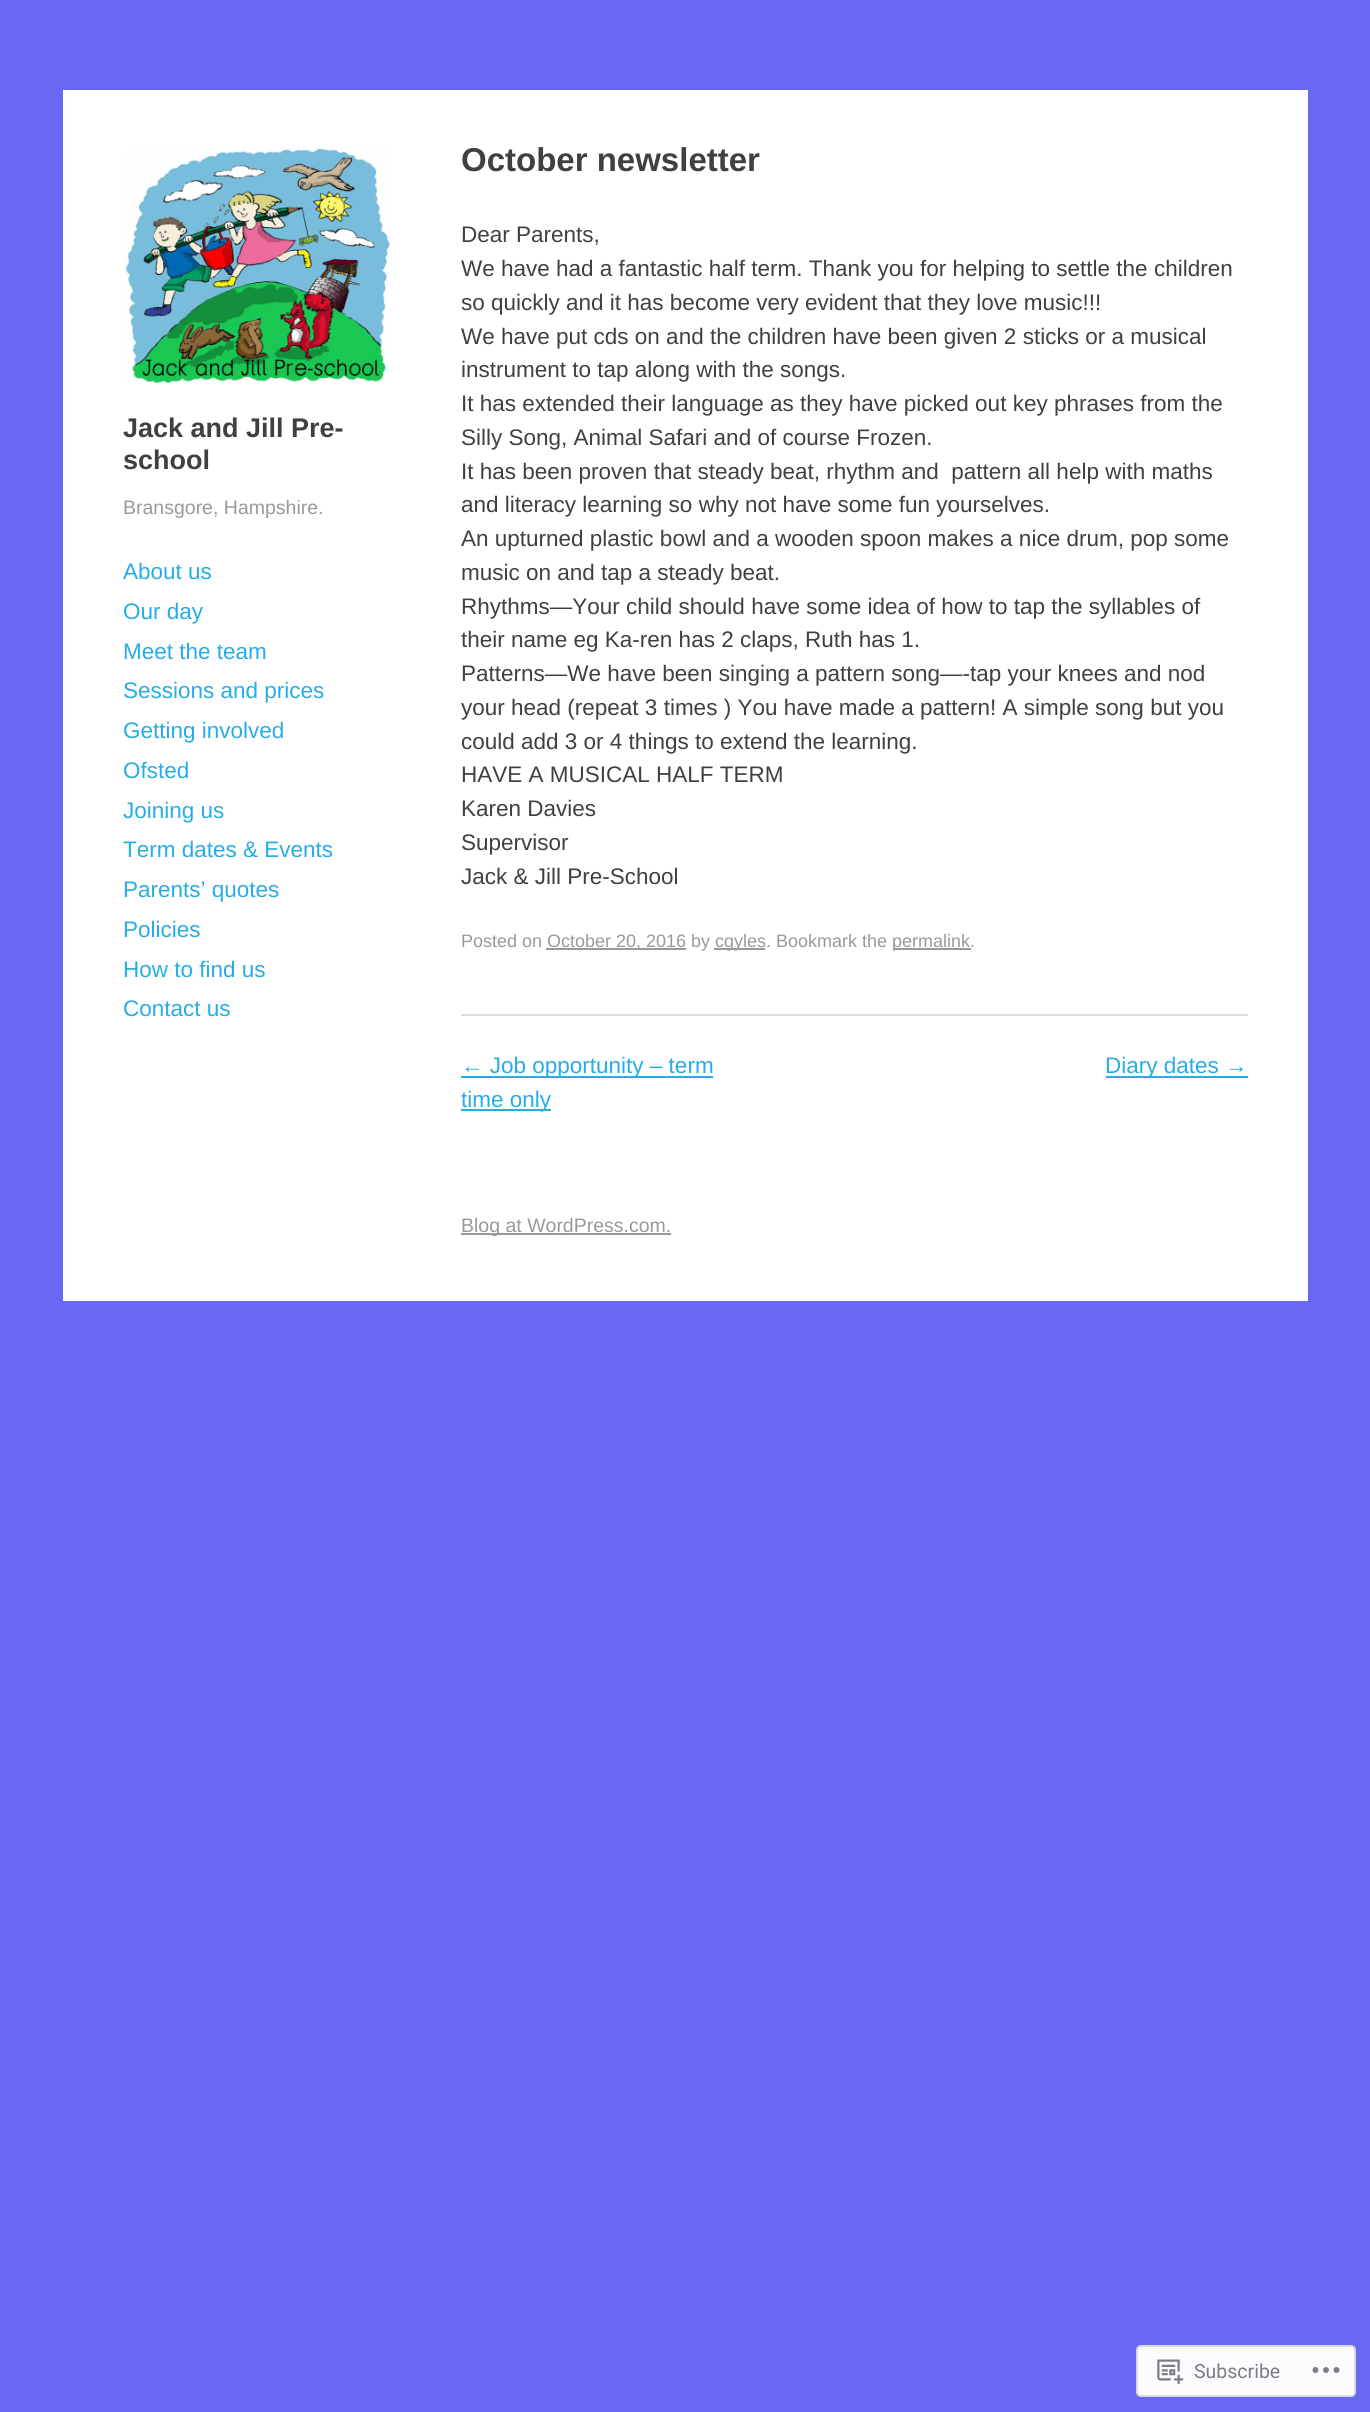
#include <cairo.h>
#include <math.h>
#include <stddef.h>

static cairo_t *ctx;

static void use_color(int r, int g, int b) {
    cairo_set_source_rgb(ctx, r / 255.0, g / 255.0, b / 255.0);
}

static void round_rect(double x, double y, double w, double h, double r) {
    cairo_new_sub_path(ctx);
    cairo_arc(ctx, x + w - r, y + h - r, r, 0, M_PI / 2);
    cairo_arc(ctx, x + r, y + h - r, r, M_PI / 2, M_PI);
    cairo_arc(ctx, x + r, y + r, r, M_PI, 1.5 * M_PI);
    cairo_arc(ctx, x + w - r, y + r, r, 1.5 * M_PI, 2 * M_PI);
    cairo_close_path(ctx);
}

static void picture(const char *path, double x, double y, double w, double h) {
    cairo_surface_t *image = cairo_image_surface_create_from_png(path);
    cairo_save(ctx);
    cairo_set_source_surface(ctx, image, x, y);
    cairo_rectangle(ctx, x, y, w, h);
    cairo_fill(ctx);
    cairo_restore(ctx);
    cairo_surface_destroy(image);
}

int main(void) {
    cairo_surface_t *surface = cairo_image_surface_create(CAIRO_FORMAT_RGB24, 1370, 2412);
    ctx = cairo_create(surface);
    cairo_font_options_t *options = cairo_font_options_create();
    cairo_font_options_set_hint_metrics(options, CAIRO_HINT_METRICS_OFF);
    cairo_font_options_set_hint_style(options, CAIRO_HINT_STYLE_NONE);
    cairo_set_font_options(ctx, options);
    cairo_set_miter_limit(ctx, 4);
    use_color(104, 104, 242);
    cairo_paint(ctx);
    use_color(255, 255, 255);
    cairo_rectangle(ctx, 63, 90, 1245, 1211);
    cairo_fill(ctx);
    picture("img1.png", 125, 148, 265, 236);
    cairo_select_font_face(ctx, "Liberation Sans", CAIRO_FONT_SLANT_NORMAL, CAIRO_FONT_WEIGHT_BOLD);
    cairo_set_font_size(ctx, 27);
    use_color(64, 64, 64);
    cairo_move_to(ctx, 123, 437);
    cairo_show_text(ctx, "Jack and Jill Pre-");
    cairo_move_to(ctx, 123, 469);
    cairo_show_text(ctx, "school");
    cairo_select_font_face(ctx, "Liberation Sans", CAIRO_FONT_SLANT_NORMAL, CAIRO_FONT_WEIGHT_NORMAL);
    cairo_set_font_size(ctx, 19.5);
    use_color(153, 153, 153);
    cairo_move_to(ctx, 123, 514);
    cairo_show_text(ctx, "Bransgore, Hampshire.");
    cairo_set_font_size(ctx, 22.5);
    use_color(38, 173, 228);
    cairo_move_to(ctx, 123, 579);
    cairo_show_text(ctx, "About us");
    cairo_move_to(ctx, 123, 619);
    cairo_show_text(ctx, "Our day");
    cairo_move_to(ctx, 123, 659);
    cairo_show_text(ctx, "Meet the team");
    cairo_move_to(ctx, 123, 698);
    cairo_show_text(ctx, "Sessions and prices");
    cairo_move_to(ctx, 123, 738);
    cairo_show_text(ctx, "Getting involved");
    cairo_move_to(ctx, 123, 778);
    cairo_show_text(ctx, "Ofsted");
    cairo_move_to(ctx, 123, 818);
    cairo_show_text(ctx, "Joining us");
    cairo_move_to(ctx, 123, 857);
    cairo_show_text(ctx, "Term dates & Events");
    cairo_move_to(ctx, 123, 897);
    cairo_show_text(ctx, "Parents’ quotes");
    cairo_move_to(ctx, 123, 937);
    cairo_show_text(ctx, "Policies");
    cairo_move_to(ctx, 123, 977);
    cairo_show_text(ctx, "How to find us");
    cairo_move_to(ctx, 123, 1016);
    cairo_show_text(ctx, "Contact us");
    use_color(221, 221, 221);
    cairo_rectangle(ctx, 461, 1014, 787, 2);
    cairo_fill(ctx);
    cairo_select_font_face(ctx, "Liberation Sans", CAIRO_FONT_SLANT_NORMAL, CAIRO_FONT_WEIGHT_BOLD);
    cairo_set_font_size(ctx, 33);
    use_color(64, 64, 64);
    cairo_move_to(ctx, 461, 171);
    cairo_show_text(ctx, "October newsletter");
    cairo_select_font_face(ctx, "Liberation Sans", CAIRO_FONT_SLANT_NORMAL, CAIRO_FONT_WEIGHT_NORMAL);
    cairo_set_font_size(ctx, 22.5);
    cairo_move_to(ctx, 461, 242);
    cairo_show_text(ctx, "Dear Parents,");
    cairo_move_to(ctx, 461, 276);
    cairo_show_text(ctx, "We have had a fantastic half term. Thank you for helping to settle the children");
    cairo_move_to(ctx, 461, 310);
    cairo_show_text(ctx, "so quickly and it has become very evident that they love music!!!");
    cairo_move_to(ctx, 461, 344);
    cairo_show_text(ctx, "We have put cds on and the children have been given 2 sticks or a musical");
    cairo_move_to(ctx, 461, 377);
    cairo_show_text(ctx, "instrument to tap along with the songs.");
    cairo_move_to(ctx, 461, 411);
    cairo_show_text(ctx, "It has extended their language as they have picked out key phrases from the");
    cairo_move_to(ctx, 461, 445);
    cairo_show_text(ctx, "Silly Song, Animal Safari and of course Frozen.");
    cairo_move_to(ctx, 461, 479);
    cairo_show_text(ctx, "It has been proven that steady beat, rhythm and  pattern all help with maths");
    cairo_move_to(ctx, 461, 512);
    cairo_show_text(ctx, "and literacy learning so why not have some fun yourselves.");
    cairo_move_to(ctx, 461, 546);
    cairo_show_text(ctx, "An upturned plastic bowl and a wooden spoon makes a nice drum, pop some");
    cairo_move_to(ctx, 461, 580);
    cairo_show_text(ctx, "music on and tap a steady beat.");
    cairo_move_to(ctx, 461, 614);
    cairo_show_text(ctx, "Rhythms—Your child should have some idea of how to tap the syllables of");
    cairo_move_to(ctx, 461, 647);
    cairo_show_text(ctx, "their name eg Ka-ren has 2 claps, Ruth has 1.");
    cairo_move_to(ctx, 461, 681);
    cairo_show_text(ctx, "Patterns—We have been singing a pattern song—-tap your knees and nod");
    cairo_move_to(ctx, 461, 715);
    cairo_show_text(ctx, "your head (repeat 3 times ) You have made a pattern! A simple song but you");
    cairo_move_to(ctx, 461, 749);
    cairo_show_text(ctx, "could add 3 or 4 things to extend the learning.");
    cairo_move_to(ctx, 461, 782);
    cairo_show_text(ctx, "HAVE A MUSICAL HALF TERM");
    cairo_move_to(ctx, 461, 816);
    cairo_show_text(ctx, "Karen Davies");
    cairo_move_to(ctx, 461, 850);
    cairo_show_text(ctx, "Supervisor");
    cairo_move_to(ctx, 461, 884);
    cairo_show_text(ctx, "Jack & Jill Pre-School");
    cairo_set_font_size(ctx, 18);
    use_color(153, 153, 153);
    cairo_move_to(ctx, 461, 947);
    cairo_show_text(ctx, "Posted on");
    cairo_rectangle(ctx, 546, 948, 140, 2);
    cairo_fill(ctx);
    cairo_move_to(ctx, 547, 947);
    cairo_show_text(ctx, "October 20, 2016 by");
    cairo_rectangle(ctx, 714, 948, 51, 2);
    cairo_fill(ctx);
    cairo_move_to(ctx, 715, 947);
    cairo_show_text(ctx, "cgyles. Bookmark the");
    cairo_rectangle(ctx, 893, 948, 78, 2);
    cairo_fill(ctx);
    cairo_move_to(ctx, 892, 947);
    cairo_show_text(ctx, "permalink.");
    use_color(38, 173, 228);
    cairo_rectangle(ctx, 461, 1076, 252, 2);
    cairo_fill(ctx);
    cairo_set_font_size(ctx, 22.5);
    cairo_move_to(ctx, 461, 1073);
    cairo_show_text(ctx, "← Job opportunity – term");
    cairo_rectangle(ctx, 461, 1109, 90, 2);
    cairo_fill(ctx);
    cairo_move_to(ctx, 461, 1107);
    cairo_show_text(ctx, "time only");
    cairo_rectangle(ctx, 1106, 1076, 142, 2);
    cairo_fill(ctx);
    cairo_move_to(ctx, 1105, 1073);
    cairo_show_text(ctx, "Diary dates →");
    use_color(153, 153, 153);
    cairo_rectangle(ctx, 461, 1233, 210, 2);
    cairo_fill(ctx);
    cairo_set_font_size(ctx, 19.5);
    cairo_move_to(ctx, 461, 1232);
    cairo_show_text(ctx, "Blog at WordPress.com.");
    use_color(252, 252, 255);
    round_rect(1137, 2346, 218, 50, 4);
    cairo_fill_preserve(ctx);
    use_color(218, 218, 222);
    cairo_stroke(ctx);
    picture("img2.png", 1157, 2359, 27, 25);
    cairo_select_font_face(ctx, "Roboto", CAIRO_FONT_SLANT_NORMAL, CAIRO_FONT_WEIGHT_NORMAL);
    use_color(120, 124, 132);
    cairo_move_to(ctx, 1194, 2378);
    cairo_show_text(ctx, "Subscribe");
    picture("img3.png", 1312, 2367, 28, 6);
    cairo_surface_write_to_png(surface, "result.png");
    cairo_font_options_destroy(options);
    cairo_destroy(ctx);
    cairo_surface_destroy(surface);
    return 0;
}
